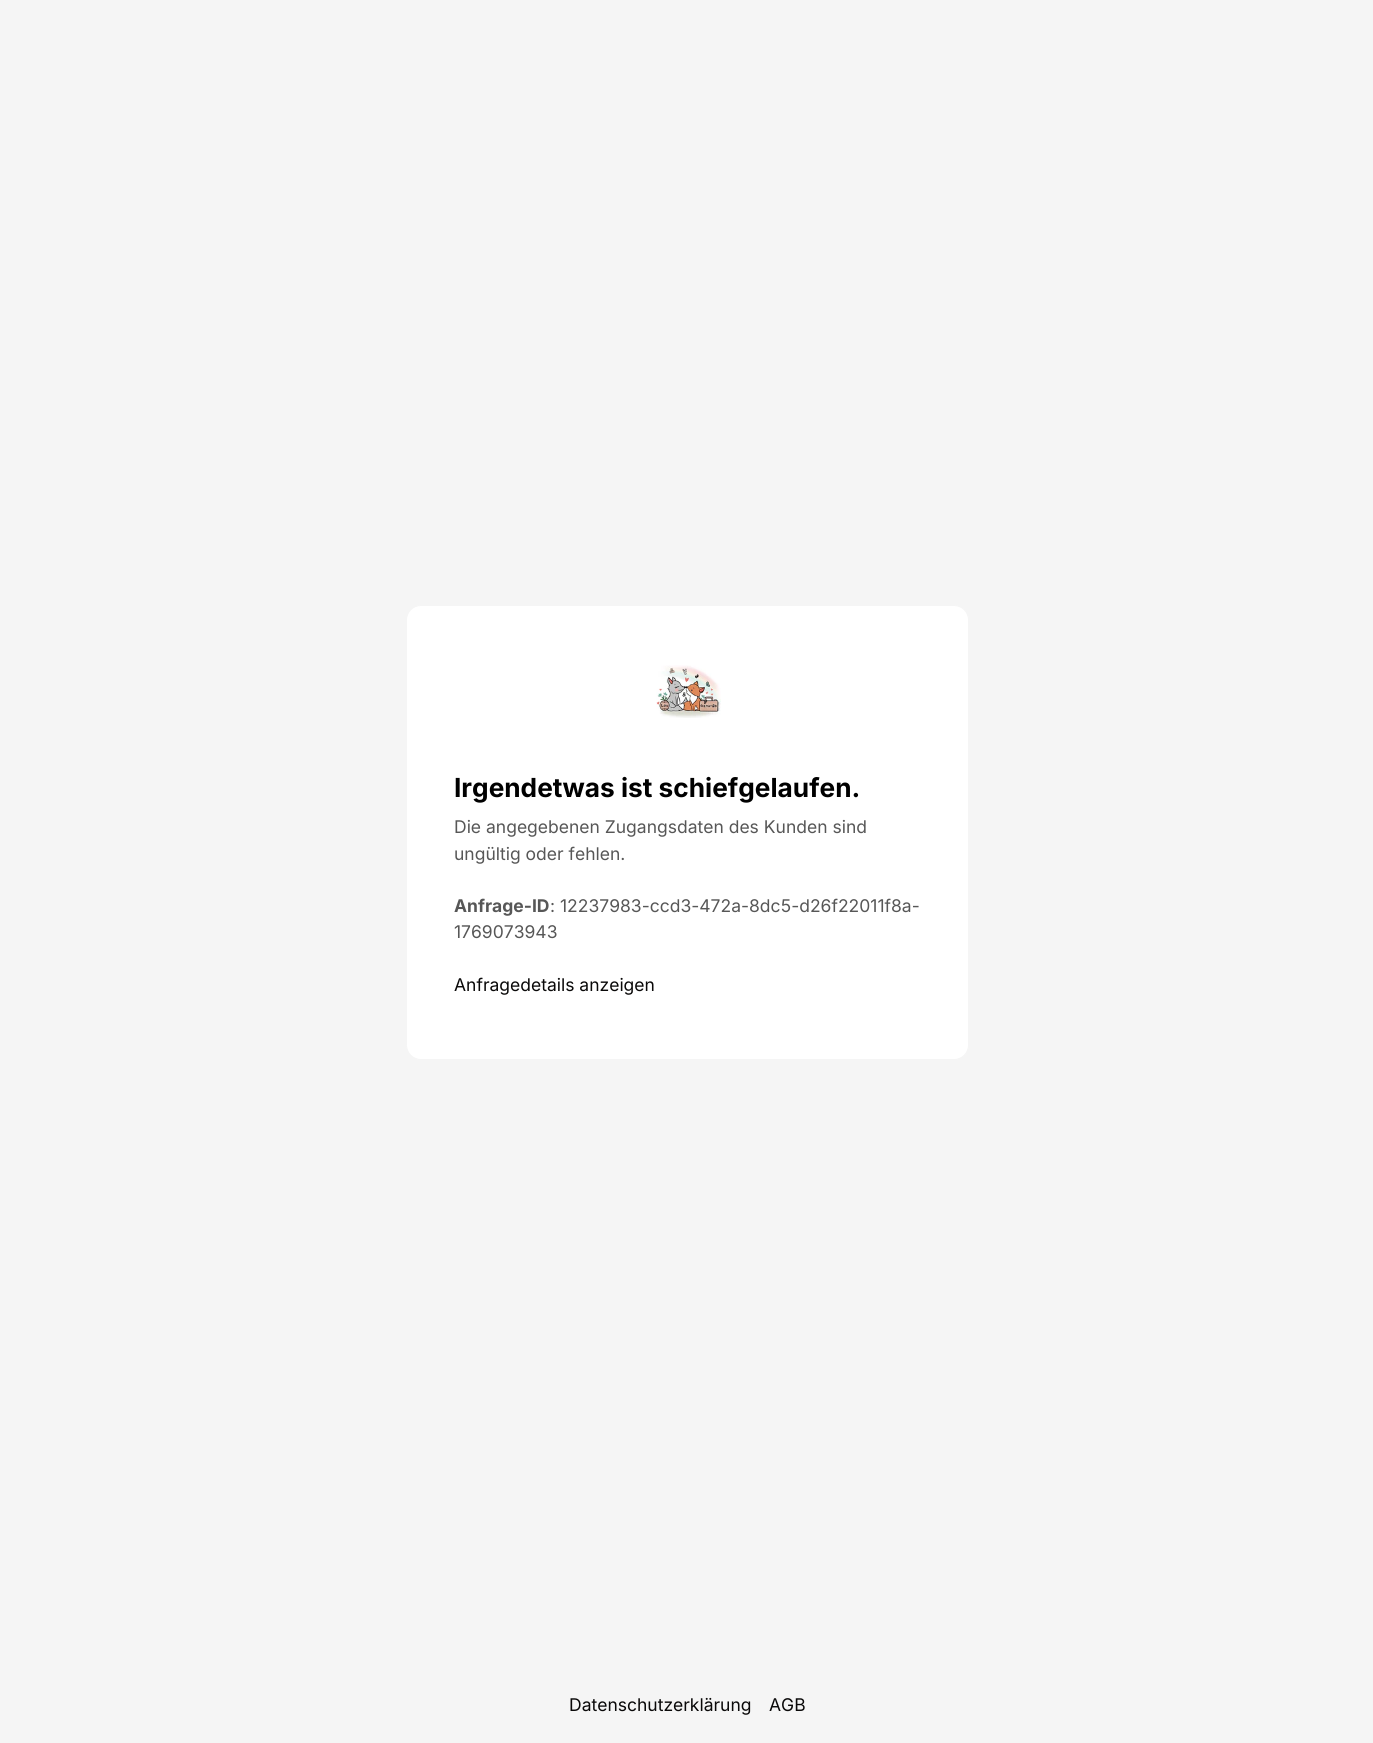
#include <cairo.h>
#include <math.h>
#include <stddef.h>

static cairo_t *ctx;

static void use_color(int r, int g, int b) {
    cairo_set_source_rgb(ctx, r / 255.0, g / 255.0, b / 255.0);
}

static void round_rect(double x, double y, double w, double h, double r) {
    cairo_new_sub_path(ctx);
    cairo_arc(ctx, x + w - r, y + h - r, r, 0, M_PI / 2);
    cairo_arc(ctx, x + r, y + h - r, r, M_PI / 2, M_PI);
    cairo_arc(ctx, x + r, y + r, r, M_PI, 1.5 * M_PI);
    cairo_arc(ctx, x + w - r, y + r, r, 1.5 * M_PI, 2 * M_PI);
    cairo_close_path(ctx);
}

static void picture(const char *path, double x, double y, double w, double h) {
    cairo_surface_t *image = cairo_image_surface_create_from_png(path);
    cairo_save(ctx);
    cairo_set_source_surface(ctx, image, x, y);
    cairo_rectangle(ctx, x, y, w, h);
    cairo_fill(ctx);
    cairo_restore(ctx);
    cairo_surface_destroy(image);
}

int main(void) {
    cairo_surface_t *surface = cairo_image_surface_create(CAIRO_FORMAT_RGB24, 1373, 1743);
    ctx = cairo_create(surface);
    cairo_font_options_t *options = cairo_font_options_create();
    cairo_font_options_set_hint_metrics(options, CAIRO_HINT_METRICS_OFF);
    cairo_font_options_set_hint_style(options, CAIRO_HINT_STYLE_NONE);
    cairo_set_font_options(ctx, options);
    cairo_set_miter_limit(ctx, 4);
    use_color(245, 245, 245);
    cairo_paint(ctx);
    use_color(255, 255, 255);
    round_rect(406.5, 605.5, 562, 454, 14.5);
    cairo_fill_preserve(ctx);
    use_color(245, 245, 245);
    cairo_set_line_width(ctx, 1);
    cairo_stroke(ctx);
    picture("img1.png", 656, 665, 65, 53);
    cairo_select_font_face(ctx, "Inter", CAIRO_FONT_SLANT_NORMAL, CAIRO_FONT_WEIGHT_BOLD);
    cairo_set_font_size(ctx, 26.25);
    use_color(0, 0, 0);
    cairo_move_to(ctx, 454, 797);
    cairo_show_text(ctx, "Irgendetwas ist schiefgelaufen.");
    cairo_select_font_face(ctx, "Inter", CAIRO_FONT_SLANT_NORMAL, CAIRO_FONT_WEIGHT_NORMAL);
    cairo_set_font_size(ctx, 17.5);
    use_color(87, 87, 87);
    cairo_move_to(ctx, 454, 833);
    cairo_show_text(ctx, "Die angegebenen Zugangsdaten des Kunden sind");
    cairo_move_to(ctx, 454, 860);
    cairo_show_text(ctx, "ungültig oder fehlen.");
    cairo_select_font_face(ctx, "Inter", CAIRO_FONT_SLANT_NORMAL, CAIRO_FONT_WEIGHT_BOLD);
    cairo_move_to(ctx, 454, 912);
    cairo_show_text(ctx, "Anfrage-ID");
    cairo_select_font_face(ctx, "Inter", CAIRO_FONT_SLANT_NORMAL, CAIRO_FONT_WEIGHT_NORMAL);
    cairo_move_to(ctx, 550, 912);
    cairo_show_text(ctx, ": 12237983-ccd3-472a-8dc5-d26f22011f8a-");
    cairo_move_to(ctx, 454, 938);
    cairo_show_text(ctx, "1769073943");
    use_color(10, 9, 9);
    cairo_move_to(ctx, 454, 991);
    cairo_show_text(ctx, "Anfragedetails anzeigen");
    cairo_move_to(ctx, 569, 1711);
    cairo_show_text(ctx, "Datenschutzerklärung");
    cairo_move_to(ctx, 769, 1711);
    cairo_show_text(ctx, "AGB");
    cairo_surface_write_to_png(surface, "result.png");
    cairo_font_options_destroy(options);
    cairo_destroy(ctx);
    cairo_surface_destroy(surface);
    return 0;
}
